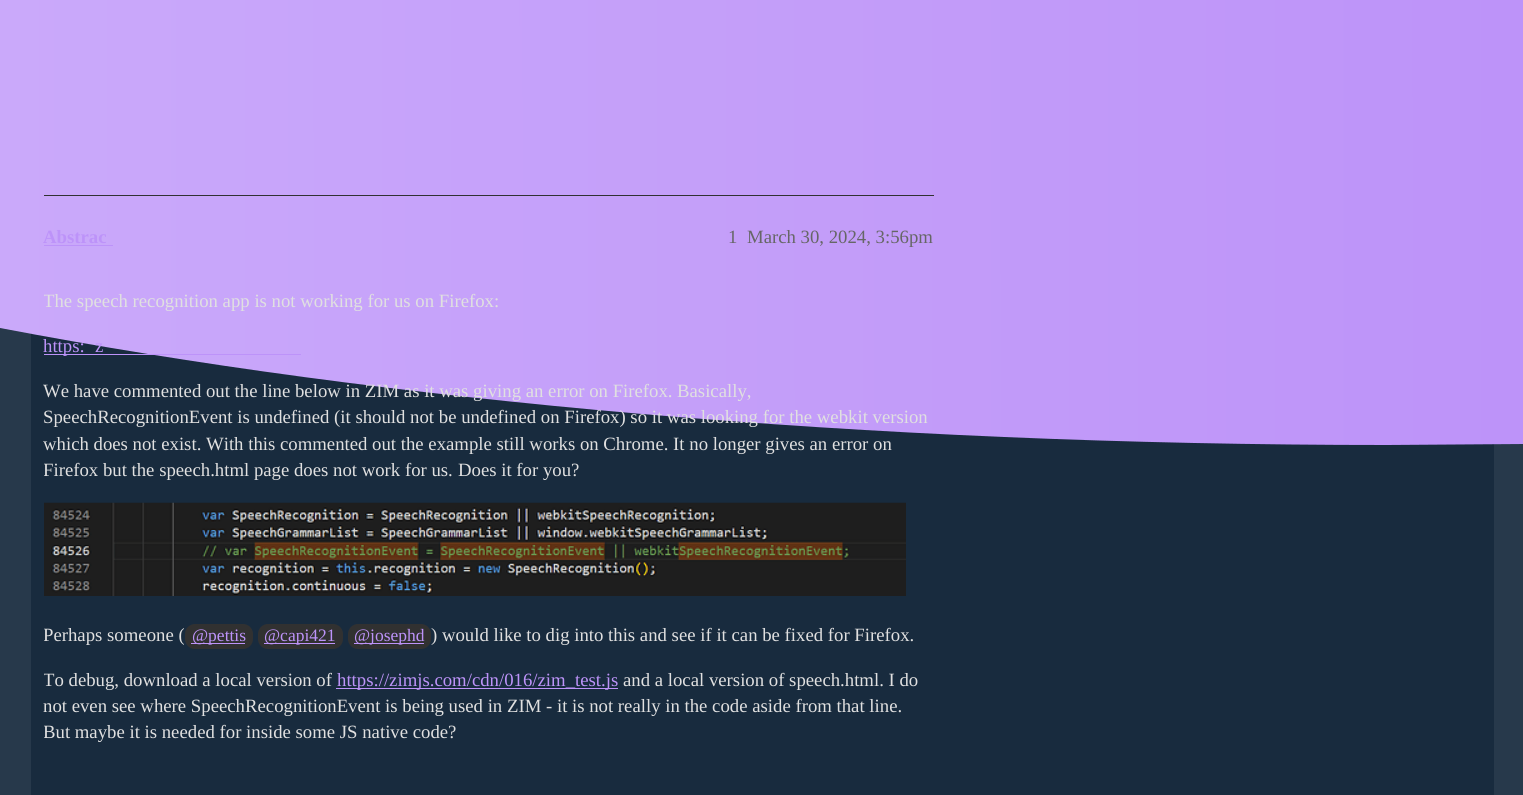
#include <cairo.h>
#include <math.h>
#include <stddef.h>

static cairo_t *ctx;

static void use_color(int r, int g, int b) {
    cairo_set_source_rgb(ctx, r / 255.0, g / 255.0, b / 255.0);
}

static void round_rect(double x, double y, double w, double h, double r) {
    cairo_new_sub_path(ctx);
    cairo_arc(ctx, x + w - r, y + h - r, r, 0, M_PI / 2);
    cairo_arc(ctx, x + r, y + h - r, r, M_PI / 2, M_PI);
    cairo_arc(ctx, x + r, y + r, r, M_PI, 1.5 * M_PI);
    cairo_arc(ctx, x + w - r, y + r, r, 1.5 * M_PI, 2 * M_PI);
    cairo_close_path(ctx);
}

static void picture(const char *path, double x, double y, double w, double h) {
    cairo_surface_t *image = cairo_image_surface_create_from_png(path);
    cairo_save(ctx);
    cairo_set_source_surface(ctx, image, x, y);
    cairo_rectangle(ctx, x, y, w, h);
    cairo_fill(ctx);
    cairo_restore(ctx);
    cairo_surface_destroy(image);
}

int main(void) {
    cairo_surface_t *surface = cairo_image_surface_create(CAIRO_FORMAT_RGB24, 1523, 795);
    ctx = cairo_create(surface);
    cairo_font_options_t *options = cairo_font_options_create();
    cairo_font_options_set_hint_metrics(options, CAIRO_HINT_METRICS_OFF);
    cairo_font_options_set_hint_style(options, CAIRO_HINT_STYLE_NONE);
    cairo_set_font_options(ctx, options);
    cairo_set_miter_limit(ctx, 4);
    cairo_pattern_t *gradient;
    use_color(39, 57, 75);
    cairo_paint(ctx);
    use_color(24, 43, 62);
    cairo_rectangle(ctx, 31, 333, 1463, 462);
    cairo_fill(ctx);
    gradient = cairo_pattern_create_linear(0, 398, 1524, 397);
    cairo_pattern_add_color_stop_rgba(gradient, 0, 0.792, 0.663, 0.98, 1);
    cairo_pattern_add_color_stop_rgba(gradient, 1, 0.741, 0.576, 0.976, 1);
    cairo_set_source(ctx, gradient);
    cairo_pattern_destroy(gradient);
    cairo_new_path(ctx);
    cairo_move_to(ctx, 0, 0);
    cairo_line_to(ctx, 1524, 0);
    cairo_line_to(ctx, 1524, 444);
    cairo_line_to(ctx, 1387, 445);
    cairo_curve_to(ctx, 864, 445, 382, 401, 0, 328);
    cairo_close_path(ctx);
    cairo_fill(ctx);
    use_color(49, 49, 49);
    cairo_rectangle(ctx, 44, 195, 890, 1);
    cairo_fill(ctx);
    cairo_select_font_face(ctx, "Liberation Serif", CAIRO_FONT_SLANT_NORMAL, CAIRO_FONT_WEIGHT_BOLD);
    cairo_set_font_size(ctx, 18.75);
    use_color(189, 147, 249);
    cairo_move_to(ctx, 43, 243);
    cairo_show_text(ctx, "Abstrac");
    cairo_rectangle(ctx, 44, 245, 69, 1);
    cairo_fill(ctx);
    cairo_select_font_face(ctx, "Liberation Serif", CAIRO_FONT_SLANT_NORMAL, CAIRO_FONT_WEIGHT_NORMAL);
    use_color(102, 102, 102);
    cairo_move_to(ctx, 728, 243);
    cairo_show_text(ctx, "1");
    cairo_move_to(ctx, 747, 243);
    cairo_show_text(ctx, "March 30, 2024, 3:56pm");
    cairo_save(ctx);
    cairo_rectangle(ctx, 44, 270, 890, 495);
    cairo_clip(ctx);
    use_color(224, 224, 224);
    cairo_move_to(ctx, 43, 307);
    cairo_show_text(ctx, "The speech recognition app is not working for us on Firefox:");
    cairo_restore(ctx);
    use_color(189, 147, 249);
    cairo_rectangle(ctx, 44, 354, 257, 1);
    cairo_fill(ctx);
    cairo_move_to(ctx, 43, 352);
    cairo_show_text(ctx, "https:");
    cairo_move_to(ctx, 95, 352);
    cairo_show_text(ctx, "z");
    use_color(224, 224, 224);
    cairo_move_to(ctx, 43, 397);
    cairo_show_text(ctx, "We have commented out the line below in ZIM as it was giving an error on Firefox.");
    cairo_move_to(ctx, 677, 397);
    cairo_show_text(ctx, "Basically,");
    cairo_move_to(ctx, 43, 423);
    cairo_show_text(ctx, "SpeechRecognitionEvent is undefined (it should not be undefined on Firefox) so it was looking for the webkit version");
    cairo_move_to(ctx, 43, 450);
    cairo_show_text(ctx, "which does not exist. With this commented out the example still works on Chrome. It no longer gives an error on");
    cairo_save(ctx);
    cairo_rectangle(ctx, 44, 270, 890, 495);
    cairo_clip(ctx);
    cairo_move_to(ctx, 43, 476);
    cairo_show_text(ctx, "Firefox but the speech.html page does not work for us.");
    cairo_restore(ctx);
    cairo_move_to(ctx, 458, 476);
    cairo_show_text(ctx, "Does it for you?");
    picture("img1.png", 44, 502, 862, 94);
    cairo_save(ctx);
    cairo_rectangle(ctx, 44, 270, 890, 495);
    cairo_clip(ctx);
    cairo_move_to(ctx, 43, 641);
    cairo_show_text(ctx, "Perhaps someone (");
    cairo_restore(ctx);
    use_color(49, 49, 49);
    round_rect(185, 624, 68, 25, 10);
    cairo_fill(ctx);
    use_color(189, 147, 249);
    cairo_rectangle(ctx, 191, 643, 54, 1);
    cairo_fill(ctx);
    cairo_set_font_size(ctx, 17.5);
    cairo_move_to(ctx, 192, 641);
    cairo_show_text(ctx, "@pettis");
    use_color(49, 49, 49);
    round_rect(258, 624, 85, 25, 10);
    cairo_fill(ctx);
    use_color(189, 147, 249);
    cairo_rectangle(ctx, 264, 643, 71, 1);
    cairo_fill(ctx);
    cairo_move_to(ctx, 264, 641);
    cairo_show_text(ctx, "@capi421");
    use_color(49, 49, 49);
    round_rect(348, 624, 83, 25, 10);
    cairo_fill(ctx);
    use_color(189, 147, 249);
    cairo_rectangle(ctx, 354, 643, 70, 1);
    cairo_fill(ctx);
    cairo_move_to(ctx, 354, 641);
    cairo_show_text(ctx, "@josephd");
    cairo_set_font_size(ctx, 18.75);
    use_color(224, 224, 224);
    cairo_move_to(ctx, 431, 641);
    cairo_show_text(ctx, ") would like to dig into this and see if it can be fixed for Firefox.");
    cairo_save(ctx);
    cairo_rectangle(ctx, 44, 270, 890, 495);
    cairo_clip(ctx);
    cairo_move_to(ctx, 43, 686);
    cairo_show_text(ctx, "To debug, download a local version of");
    cairo_restore(ctx);
    use_color(189, 147, 249);
    cairo_rectangle(ctx, 336, 688, 282, 1);
    cairo_fill(ctx);
    cairo_move_to(ctx, 337, 686);
    cairo_show_text(ctx, "https://zimjs.com/cdn/016/zim_test.js");
    use_color(224, 224, 224);
    cairo_move_to(ctx, 623, 686);
    cairo_show_text(ctx, "and a local version of speech.html. I do");
    cairo_move_to(ctx, 43, 712);
    cairo_show_text(ctx, "not even see where SpeechRecognitionEvent is being used in ZIM - it is not really in the code aside from that line.");
    cairo_save(ctx);
    cairo_rectangle(ctx, 44, 270, 890, 495);
    cairo_clip(ctx);
    cairo_move_to(ctx, 43, 738);
    cairo_show_text(ctx, "But maybe it is needed for inside some JS native code?");
    cairo_restore(ctx);
    cairo_surface_write_to_png(surface, "result.png");
    cairo_font_options_destroy(options);
    cairo_destroy(ctx);
    cairo_surface_destroy(surface);
    return 0;
}
